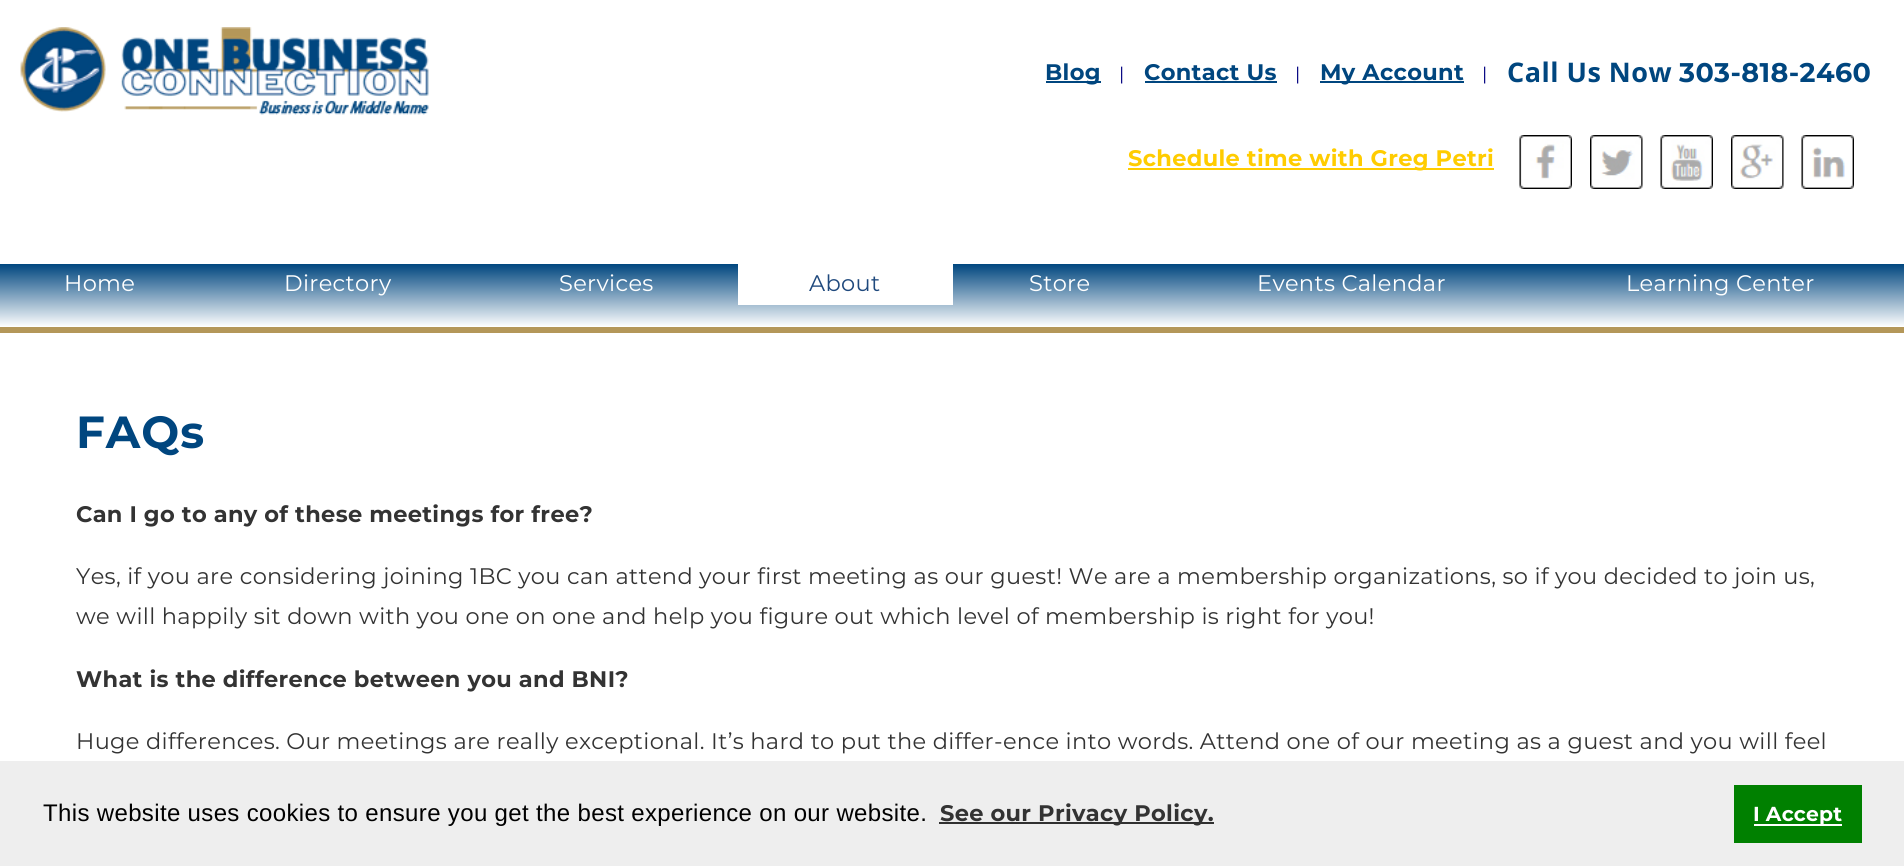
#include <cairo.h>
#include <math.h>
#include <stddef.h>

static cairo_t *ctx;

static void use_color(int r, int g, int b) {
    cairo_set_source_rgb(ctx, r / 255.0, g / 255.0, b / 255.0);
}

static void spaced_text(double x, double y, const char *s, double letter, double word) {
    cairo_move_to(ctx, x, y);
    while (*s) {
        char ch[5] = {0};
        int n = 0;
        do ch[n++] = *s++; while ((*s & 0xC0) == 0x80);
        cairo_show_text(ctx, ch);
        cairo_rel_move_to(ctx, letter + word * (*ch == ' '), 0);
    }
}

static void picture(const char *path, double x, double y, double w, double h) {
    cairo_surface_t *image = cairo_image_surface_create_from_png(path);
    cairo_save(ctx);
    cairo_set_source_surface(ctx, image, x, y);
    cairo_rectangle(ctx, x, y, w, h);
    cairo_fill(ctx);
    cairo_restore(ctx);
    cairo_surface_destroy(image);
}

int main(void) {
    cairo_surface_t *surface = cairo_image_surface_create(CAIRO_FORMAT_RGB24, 1904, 866);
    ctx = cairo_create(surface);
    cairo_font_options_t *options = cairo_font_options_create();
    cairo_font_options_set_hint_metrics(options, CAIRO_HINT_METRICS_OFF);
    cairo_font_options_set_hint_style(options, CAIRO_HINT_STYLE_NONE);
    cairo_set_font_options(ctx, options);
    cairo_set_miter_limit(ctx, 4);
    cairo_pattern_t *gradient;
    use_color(255, 255, 255);
    cairo_paint(ctx);
    picture("img1.png", 20, 27, 409, 88);
    use_color(0, 70, 127);
    cairo_rectangle(ctx, 1046, 81, 55, 2);
    cairo_fill(ctx);
    cairo_select_font_face(ctx, "Montserrat", CAIRO_FONT_SLANT_NORMAL, CAIRO_FONT_WEIGHT_BOLD);
    cairo_set_font_size(ctx, 22.5);
    spaced_text(1045, 80, "Blog", 0.34, 0);
    cairo_select_font_face(ctx, "Montserrat", CAIRO_FONT_SLANT_NORMAL, CAIRO_FONT_WEIGHT_NORMAL);
    cairo_set_font_size(ctx, 18);
    use_color(0, 0, 128);
    spaced_text(1119, 80, "|", 0.34, 0);
    cairo_select_font_face(ctx, "Montserrat", CAIRO_FONT_SLANT_NORMAL, CAIRO_FONT_WEIGHT_BOLD);
    cairo_set_font_size(ctx, 22.5);
    use_color(0, 70, 127);
    spaced_text(1144, 80, "Contact Us", 0.34, 0);
    cairo_rectangle(ctx, 1145, 81, 132, 2);
    cairo_fill(ctx);
    cairo_select_font_face(ctx, "Montserrat", CAIRO_FONT_SLANT_NORMAL, CAIRO_FONT_WEIGHT_NORMAL);
    cairo_set_font_size(ctx, 18);
    use_color(0, 0, 128);
    spaced_text(1295, 80, "|", 0.34, 0);
    use_color(0, 70, 127);
    cairo_rectangle(ctx, 1320, 81, 144, 2);
    cairo_fill(ctx);
    cairo_select_font_face(ctx, "Montserrat", CAIRO_FONT_SLANT_NORMAL, CAIRO_FONT_WEIGHT_BOLD);
    cairo_set_font_size(ctx, 22.5);
    spaced_text(1320, 80, "My Account", 0.34, 0);
    cairo_select_font_face(ctx, "Montserrat", CAIRO_FONT_SLANT_NORMAL, CAIRO_FONT_WEIGHT_NORMAL);
    cairo_set_font_size(ctx, 18);
    use_color(0, 0, 128);
    spaced_text(1482, 80, "|", 0.34, 0);
    cairo_select_font_face(ctx, "Open Sans", CAIRO_FONT_SLANT_NORMAL, CAIRO_FONT_WEIGHT_BOLD);
    cairo_set_font_size(ctx, 27);
    use_color(0, 70, 127);
    spaced_text(1507, 82, "Call Us Now", 0.5, 0);
    cairo_select_font_face(ctx, "Montserrat", CAIRO_FONT_SLANT_NORMAL, CAIRO_FONT_WEIGHT_BOLD);
    spaced_text(1679, 82, "303-818-2460", 0.4, 0);
    use_color(255, 204, 0);
    cairo_rectangle(ctx, 1128, 168, 366, 2);
    cairo_fill(ctx);
    cairo_set_font_size(ctx, 22.5);
    spaced_text(1128, 166, "Schedule time with Greg Petri", 0.34, 0);
    picture("img2.png", 1519, 135, 53, 54);
    picture("img3.png", 1590, 135, 53, 54);
    picture("img4.png", 1660, 135, 53, 54);
    picture("img5.png", 1731, 135, 53, 54);
    picture("img6.png", 1801, 135, 53, 54);
    gradient = cairo_pattern_create_linear(953, 264, 953, 327);
    cairo_pattern_add_color_stop_rgba(gradient, 0, 0, 0.275, 0.498, 1);
    cairo_pattern_add_color_stop_rgba(gradient, 1, 1, 1, 1, 1);
    cairo_set_source(ctx, gradient);
    cairo_pattern_destroy(gradient);
    cairo_rectangle(ctx, 0, 264, 1904, 62);
    cairo_fill(ctx);
    use_color(180, 151, 89);
    cairo_rectangle(ctx, 0, 327, 1904, 6);
    cairo_fill(ctx);
    cairo_select_font_face(ctx, "Montserrat", CAIRO_FONT_SLANT_NORMAL, CAIRO_FONT_WEIGHT_NORMAL);
    use_color(255, 255, 255);
    spaced_text(64, 291, "Home", 0.34, 0);
    spaced_text(284, 291, "Directory", 0.34, 0);
    spaced_text(559, 291, "Services", 0.34, 0);
    cairo_rectangle(ctx, 738, 264, 215, 41);
    cairo_fill(ctx);
    use_color(31, 73, 125);
    spaced_text(809, 291, "About", 0.34, 0);
    use_color(255, 255, 255);
    spaced_text(1029, 291, "Store", 0.34, 0);
    spaced_text(1257, 291, "Events Calendar", 0.34, 0);
    spaced_text(1626, 291, "Learning Center", 0.34, 0);
    cairo_select_font_face(ctx, "Montserrat", CAIRO_FONT_SLANT_NORMAL, CAIRO_FONT_WEIGHT_BOLD);
    cairo_set_font_size(ctx, 45);
    use_color(0, 70, 127);
    spaced_text(76, 448, "FAQs", 1, 0);
    cairo_set_font_size(ctx, 22.5);
    use_color(51, 51, 51);
    spaced_text(76, 522, "Can I go to any of these meetings for free?", 0.34, 0);
    cairo_select_font_face(ctx, "Montserrat", CAIRO_FONT_SLANT_NORMAL, CAIRO_FONT_WEIGHT_NORMAL);
    spaced_text(76, 584, "Yes, if you are considering joining 1BC you can attend your first meeting as our guest! We are a membership organizations, so if you decided to join us,", 0.34, 0);
    spaced_text(76, 624, "we will happily sit down with you one on one and help you figure out which level of membership is right for you!", 0.34, 0);
    cairo_select_font_face(ctx, "Montserrat", CAIRO_FONT_SLANT_NORMAL, CAIRO_FONT_WEIGHT_BOLD);
    spaced_text(76, 687, "What is the difference between you and BNI?", 0.34, 0);
    cairo_select_font_face(ctx, "Montserrat", CAIRO_FONT_SLANT_NORMAL, CAIRO_FONT_WEIGHT_NORMAL);
    spaced_text(76, 749, "Huge differences. Our meetings are really exceptional. It’s hard to put the differ-ence into words. Attend one of our meeting as a guest and you will feel", 0.34, 0);
    use_color(238, 238, 238);
    cairo_rectangle(ctx, 0, 761, 1904, 105);
    cairo_fill(ctx);
    cairo_select_font_face(ctx, "Liberation Sans", CAIRO_FONT_SLANT_NORMAL, CAIRO_FONT_WEIGHT_NORMAL);
    cairo_set_font_size(ctx, 24);
    use_color(0, 0, 0);
    spaced_text(43, 821, "This website uses cookies to ensure you get the best experience on our website.", 0.35, 0);
    use_color(48, 48, 48);
    cairo_rectangle(ctx, 939, 822, 275, 2);
    cairo_fill(ctx);
    cairo_select_font_face(ctx, "Montserrat", CAIRO_FONT_SLANT_NORMAL, CAIRO_FONT_WEIGHT_BOLD);
    cairo_set_font_size(ctx, 22.5);
    use_color(51, 51, 51);
    spaced_text(940, 821, "See our Privacy Policy.", 0.34, 0);
    use_color(0, 128, 0);
    cairo_rectangle(ctx, 1734, 785, 128, 58);
    cairo_fill(ctx);
    use_color(255, 255, 255);
    cairo_rectangle(ctx, 1754, 824, 88, 2);
    cairo_fill(ctx);
    cairo_set_font_size(ctx, 20.25);
    spaced_text(1753, 821, "I Accept", 0.25, 0);
    cairo_surface_write_to_png(surface, "result.png");
    cairo_font_options_destroy(options);
    cairo_destroy(ctx);
    cairo_surface_destroy(surface);
    return 0;
}
